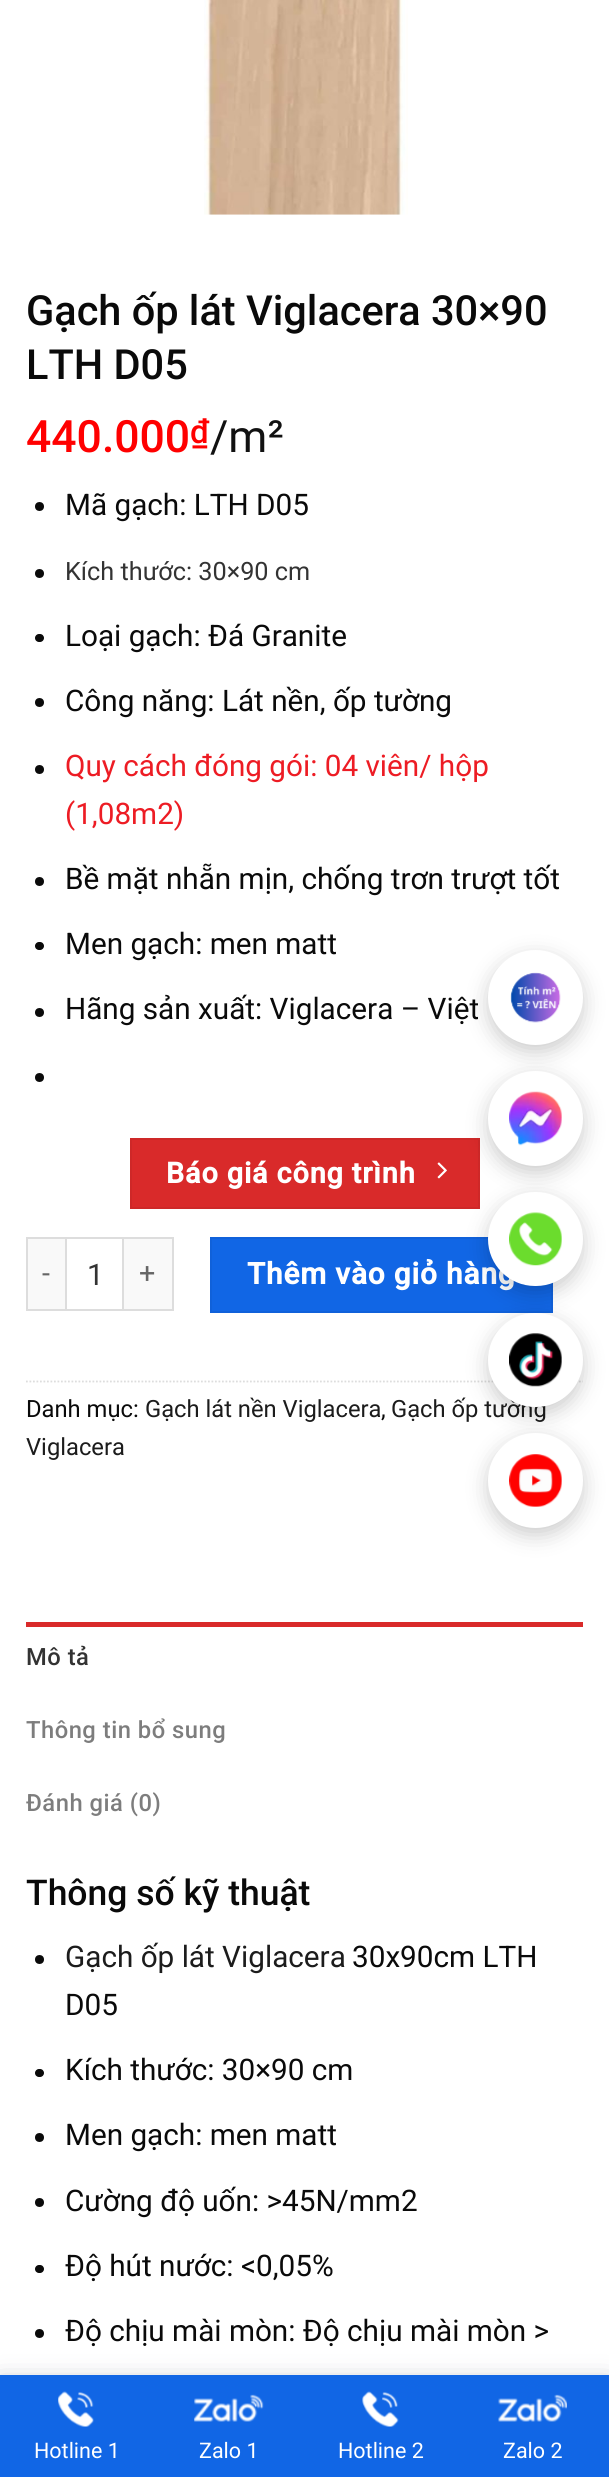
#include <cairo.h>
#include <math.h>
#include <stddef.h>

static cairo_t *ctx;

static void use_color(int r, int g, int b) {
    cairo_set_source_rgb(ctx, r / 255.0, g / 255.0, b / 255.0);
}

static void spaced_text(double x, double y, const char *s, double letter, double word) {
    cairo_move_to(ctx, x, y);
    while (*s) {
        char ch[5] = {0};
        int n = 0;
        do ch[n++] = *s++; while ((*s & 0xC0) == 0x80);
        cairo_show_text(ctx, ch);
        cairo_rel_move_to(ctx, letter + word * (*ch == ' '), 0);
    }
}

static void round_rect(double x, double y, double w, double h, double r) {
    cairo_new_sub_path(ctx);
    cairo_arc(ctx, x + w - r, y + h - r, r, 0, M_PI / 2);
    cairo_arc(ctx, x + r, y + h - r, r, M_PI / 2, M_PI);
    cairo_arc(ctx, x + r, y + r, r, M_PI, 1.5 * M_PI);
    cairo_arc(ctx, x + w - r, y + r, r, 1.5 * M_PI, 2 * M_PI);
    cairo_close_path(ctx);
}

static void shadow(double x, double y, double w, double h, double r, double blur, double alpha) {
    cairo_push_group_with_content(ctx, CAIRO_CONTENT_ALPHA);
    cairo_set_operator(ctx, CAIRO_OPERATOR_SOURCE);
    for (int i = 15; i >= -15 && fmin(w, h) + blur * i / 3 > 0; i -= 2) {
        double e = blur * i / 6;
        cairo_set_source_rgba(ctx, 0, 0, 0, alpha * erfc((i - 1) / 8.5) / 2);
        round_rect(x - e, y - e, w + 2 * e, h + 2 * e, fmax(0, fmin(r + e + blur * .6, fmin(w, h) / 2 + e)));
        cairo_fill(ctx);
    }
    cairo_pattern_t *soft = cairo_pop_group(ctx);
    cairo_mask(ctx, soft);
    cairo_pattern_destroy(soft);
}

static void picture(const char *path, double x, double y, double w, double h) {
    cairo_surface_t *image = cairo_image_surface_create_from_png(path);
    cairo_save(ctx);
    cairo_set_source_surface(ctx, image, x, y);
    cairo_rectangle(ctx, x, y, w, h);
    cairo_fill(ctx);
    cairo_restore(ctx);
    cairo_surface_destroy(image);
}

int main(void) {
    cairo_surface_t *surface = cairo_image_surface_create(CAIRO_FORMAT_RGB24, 609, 2477);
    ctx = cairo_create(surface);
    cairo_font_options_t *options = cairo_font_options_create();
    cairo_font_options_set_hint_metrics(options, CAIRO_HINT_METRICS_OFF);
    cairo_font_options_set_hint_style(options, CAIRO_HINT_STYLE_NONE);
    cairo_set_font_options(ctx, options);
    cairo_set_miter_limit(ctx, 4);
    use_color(255, 255, 255);
    cairo_paint(ctx);
    picture("img1.png", 204, 0, 204, 215);
    cairo_select_font_face(ctx, "Roboto Medium", CAIRO_FONT_SLANT_NORMAL, CAIRO_FONT_WEIGHT_NORMAL);
    cairo_set_font_size(ctx, 41.5);
    use_color(10, 10, 10);
    cairo_move_to(ctx, 26, 325);
    cairo_show_text(ctx, "Gạch ốp lát Viglacera 30×90");
    cairo_move_to(ctx, 26, 379);
    cairo_show_text(ctx, "LTH D05");
    cairo_set_font_size(ctx, 44.5);
    use_color(255, 0, 0);
    cairo_move_to(ctx, 26, 452);
    cairo_show_text(ctx, "440.000");
    cairo_set_font_size(ctx, 33);
    cairo_move_to(ctx, 190, 443);
    cairo_show_text(ctx, "₫");
    cairo_select_font_face(ctx, "Roboto", CAIRO_FONT_SLANT_NORMAL, CAIRO_FONT_WEIGHT_NORMAL);
    cairo_set_font_size(ctx, 44.5);
    use_color(17, 17, 17);
    cairo_move_to(ctx, 210, 452);
    cairo_show_text(ctx, "/m²");
    use_color(10, 10, 10);
    cairo_new_path(ctx);
    cairo_arc(ctx, 39.5, 506.5, 4.5, 0, 2 * M_PI);
    cairo_fill(ctx);
    cairo_set_font_size(ctx, 29.7);
    cairo_move_to(ctx, 65, 515);
    cairo_show_text(ctx, "Mã gạch: LTH D05");
    cairo_new_path(ctx);
    cairo_arc(ctx, 39.5, 573.5, 4.5, 0, 2 * M_PI);
    cairo_fill(ctx);
    cairo_set_font_size(ctx, 25.25);
    use_color(51, 51, 51);
    cairo_move_to(ctx, 65, 580);
    cairo_show_text(ctx, "Kích thước: 30×90 cm");
    use_color(10, 10, 10);
    round_rect(35, 634, 9, 8, 4);
    cairo_fill(ctx);
    cairo_set_font_size(ctx, 29.7);
    cairo_move_to(ctx, 65, 646);
    cairo_show_text(ctx, "Loại gạch: Đá Granite");
    cairo_new_path(ctx);
    cairo_arc(ctx, 39.5, 702.5, 4.5, 0, 2 * M_PI);
    cairo_fill(ctx);
    cairo_move_to(ctx, 65, 711);
    cairo_show_text(ctx, "Công năng: Lát nền, ốp tường");
    cairo_new_path(ctx);
    cairo_arc(ctx, 39.5, 769.5, 4.5, 0, 2 * M_PI);
    cairo_fill(ctx);
    use_color(237, 28, 36);
    cairo_move_to(ctx, 65, 776);
    cairo_show_text(ctx, "Quy cách đóng gói: 04 viên/ hộp");
    cairo_move_to(ctx, 65, 824);
    cairo_show_text(ctx, "(1,08m2)");
    use_color(10, 10, 10);
    cairo_new_path(ctx);
    cairo_arc(ctx, 39.5, 881.5, 4.5, 0, 2 * M_PI);
    cairo_fill(ctx);
    cairo_move_to(ctx, 65, 889);
    cairo_show_text(ctx, "Bề mặt nhẵn mịn, chống trơn trượt tốt");
    round_rect(35, 942, 9, 8, 4);
    cairo_fill(ctx);
    cairo_move_to(ctx, 65, 954);
    cairo_show_text(ctx, "Men gạch: men matt");
    cairo_new_path(ctx);
    cairo_arc(ctx, 39.5, 1012.5, 4.5, 0, 2 * M_PI);
    cairo_fill(ctx);
    cairo_move_to(ctx, 65, 1019);
    cairo_show_text(ctx, "Hãng sản xuất: Viglacera – Việt");
    cairo_new_path(ctx);
    cairo_arc(ctx, 39.5, 1077.5, 4.5, 0, 2 * M_PI);
    cairo_fill(ctx);
    use_color(217, 42, 42);
    cairo_rectangle(ctx, 131, 1139, 348, 69);
    cairo_fill_preserve(ctx);
    use_color(206, 40, 40);
    cairo_stroke(ctx);
    cairo_select_font_face(ctx, "Roboto", CAIRO_FONT_SLANT_NORMAL, CAIRO_FONT_WEIGHT_BOLD);
    cairo_set_font_size(ctx, 28.75);
    use_color(255, 255, 255);
    spaced_text(166, 1183, "Báo giá công trình", 0.9, 0);
    picture("img2.png", 437, 1162, 10, 17);
    use_color(249, 249, 249);
    cairo_rectangle(ctx, 28, 1239, 37, 70);
    cairo_fill(ctx);
    use_color(221, 221, 221);
    cairo_rectangle(ctx, 26, 1237, 39, 2);
    cairo_fill(ctx);
    cairo_rectangle(ctx, 26, 1309, 39, 2);
    cairo_fill(ctx);
    cairo_rectangle(ctx, 26, 1237, 2, 74);
    cairo_fill(ctx);
    cairo_select_font_face(ctx, "Roboto", CAIRO_FONT_SLANT_NORMAL, CAIRO_FONT_WEIGHT_NORMAL);
    use_color(102, 102, 102);
    spaced_text(42, 1283, "-", 0.9, 0);
    cairo_rectangle(ctx, 66, 1238, 57, 72);
    use_color(221, 221, 221);
    cairo_stroke(ctx);
    cairo_set_font_size(ctx, 29.7);
    use_color(51, 51, 51);
    cairo_move_to(ctx, 87, 1285);
    cairo_show_text(ctx, "1");
    use_color(249, 249, 249);
    cairo_rectangle(ctx, 124, 1239, 48, 70);
    cairo_fill(ctx);
    use_color(221, 221, 221);
    cairo_rectangle(ctx, 124, 1237, 49, 2);
    cairo_fill(ctx);
    cairo_rectangle(ctx, 172, 1237, 2, 74);
    cairo_fill(ctx);
    cairo_rectangle(ctx, 124, 1309, 49, 2);
    cairo_fill(ctx);
    cairo_set_font_size(ctx, 28.75);
    use_color(102, 102, 102);
    spaced_text(139, 1283, "+", 0.9, 0);
    use_color(17, 102, 229);
    cairo_rectangle(ctx, 211, 1238, 341, 74);
    cairo_fill_preserve(ctx);
    use_color(16, 97, 218);
    cairo_stroke(ctx);
    cairo_select_font_face(ctx, "Roboto", CAIRO_FONT_SLANT_NORMAL, CAIRO_FONT_WEIGHT_BOLD);
    cairo_set_font_size(ctx, 29.7);
    use_color(255, 255, 255);
    spaced_text(247, 1284, "Thêm vào giỏ hàng", 0.9, 0);
    cairo_new_path(ctx);
    cairo_move_to(ctx, 26, 1381.5);
    cairo_line_to(ctx, 583, 1381.5);
    use_color(221, 221, 221);
    cairo_set_line_width(ctx, 1.8);
    cairo_set_dash(ctx, (double[]){1.75, 1.75}, 2, 0);
    cairo_stroke(ctx);
    cairo_select_font_face(ctx, "Roboto", CAIRO_FONT_SLANT_NORMAL, CAIRO_FONT_WEIGHT_NORMAL);
    cairo_set_font_size(ctx, 23.75);
    use_color(10, 10, 10);
    cairo_move_to(ctx, 26, 1417);
    cairo_show_text(ctx, "Danh mục:");
    use_color(28, 28, 28);
    cairo_move_to(ctx, 145, 1417);
    cairo_show_text(ctx, "Gạch lát nền Viglacera");
    use_color(10, 10, 10);
    cairo_move_to(ctx, 381, 1417);
    cairo_show_text(ctx, ",");
    use_color(28, 28, 28);
    cairo_move_to(ctx, 391, 1417);
    cairo_show_text(ctx, "Gạch ốp tường");
    cairo_move_to(ctx, 26, 1455);
    cairo_show_text(ctx, "Viglacera");
    use_color(217, 42, 42);
    cairo_rectangle(ctx, 26, 1622, 557, 5);
    cairo_fill(ctx);
    cairo_select_font_face(ctx, "Roboto Medium", CAIRO_FONT_SLANT_NORMAL, CAIRO_FONT_WEIGHT_NORMAL);
    use_color(51, 51, 51);
    spaced_text(26, 1665, "Mô tả", 0.5, 0);
    use_color(125, 125, 125);
    spaced_text(26, 1738, "Thông tin bổ sung", 0.5, 0);
    spaced_text(26, 1811, "Đánh giá (0)", 0.5, 0);
    cairo_set_font_size(ctx, 35.5);
    use_color(10, 10, 10);
    cairo_move_to(ctx, 26, 1905);
    cairo_show_text(ctx, "Thông số kỹ thuật");
    cairo_new_path(ctx);
    cairo_arc(ctx, 39.5, 1959.5, 4.5, 0, 2 * M_PI);
    cairo_fill(ctx);
    cairo_select_font_face(ctx, "Roboto", CAIRO_FONT_SLANT_NORMAL, CAIRO_FONT_WEIGHT_NORMAL);
    cairo_set_font_size(ctx, 29.7);
    use_color(28, 28, 28);
    cairo_move_to(ctx, 65, 1967);
    cairo_show_text(ctx, "Gạch ốp lát Viglacera");
    use_color(10, 10, 10);
    cairo_move_to(ctx, 352, 1967);
    cairo_show_text(ctx, "30x90cm LTH");
    cairo_move_to(ctx, 65, 2015);
    cairo_show_text(ctx, "D05");
    round_rect(35, 2069, 9, 8, 4);
    cairo_fill(ctx);
    cairo_move_to(ctx, 65, 2080);
    cairo_show_text(ctx, "Kích thước: 30×90 cm");
    cairo_new_path(ctx);
    cairo_arc(ctx, 39.5, 2137.5, 4.5, 0, 2 * M_PI);
    cairo_fill(ctx);
    cairo_move_to(ctx, 65, 2145);
    cairo_show_text(ctx, "Men gạch: men matt");
    cairo_new_path(ctx);
    cairo_arc(ctx, 39.5, 2202.5, 4.5, 0, 2 * M_PI);
    cairo_fill(ctx);
    cairo_move_to(ctx, 65, 2211);
    cairo_show_text(ctx, "Cường độ uốn: >45N/mm2");
    round_rect(35, 2265, 9, 8, 4);
    cairo_fill(ctx);
    cairo_move_to(ctx, 65, 2276);
    cairo_show_text(ctx, "Độ hút nước: <0,05%");
    cairo_new_path(ctx);
    cairo_arc(ctx, 39.5, 2333.5, 4.5, 0, 2 * M_PI);
    cairo_fill(ctx);
    cairo_move_to(ctx, 65, 2341);
    cairo_show_text(ctx, "Độ chịu mài mòn: Độ chịu mài mòn >");
    use_color(0, 0, 0);
    shadow(488, 957, 95, 95, 47.5, 10.5, 0.2);
    use_color(255, 255, 255);
    cairo_arc(ctx, 535.5, 997.5, 47.5, 0, 2 * M_PI);
    cairo_fill(ctx);
    picture("img3.png", 510, 972, 51, 51);
    use_color(0, 0, 0);
    shadow(488, 1078, 95, 95, 47.5, 10.5, 0.2);
    use_color(255, 255, 255);
    cairo_arc(ctx, 535.5, 1118.5, 47.5, 0, 2 * M_PI);
    cairo_fill(ctx);
    picture("img4.png", 509, 1091, 53, 55);
    use_color(0, 0, 0);
    shadow(488, 1199, 95, 94, 47, 10.5, 0.2);
    use_color(255, 255, 255);
    round_rect(488, 1192, 95, 94, 47);
    cairo_fill(ctx);
    picture("img5.png", 509, 1212, 53, 54);
    use_color(0, 0, 0);
    shadow(488, 1320, 95, 94, 47, 10.5, 0.2);
    use_color(255, 255, 255);
    round_rect(488, 1313, 95, 94, 47);
    cairo_fill(ctx);
    picture("img6.png", 509, 1333, 53, 54);
    use_color(0, 0, 0);
    shadow(488, 1440, 95, 95, 47.5, 10.5, 0.2);
    use_color(255, 255, 255);
    cairo_arc(ctx, 535.5, 1480.5, 47.5, 0, 2 * M_PI);
    cairo_fill(ctx);
    picture("img7.png", 509, 1454, 53, 53);
    use_color(44, 51, 73);
    shadow(0, 2389, 609, 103, 0, 14, 0.6);
    use_color(17, 102, 229);
    cairo_rectangle(ctx, 0, 2375, 609, 102);
    cairo_fill(ctx);
    picture("img8.png", 58, 2391, 36, 36);
    cairo_set_font_size(ctx, 21.5);
    use_color(255, 255, 255);
    cairo_move_to(ctx, 34, 2458);
    cairo_show_text(ctx, "Hotline 1");
    picture("img9.png", 194, 2394, 70, 28);
    cairo_move_to(ctx, 199, 2458);
    cairo_show_text(ctx, "Zalo 1");
    picture("img10.png", 362, 2391, 37, 36);
    cairo_move_to(ctx, 338, 2458);
    cairo_show_text(ctx, "Hotline 2");
    picture("img11.png", 498, 2394, 69, 28);
    cairo_move_to(ctx, 503, 2458);
    cairo_show_text(ctx, "Zalo 2");
    cairo_surface_write_to_png(surface, "result.png");
    cairo_font_options_destroy(options);
    cairo_destroy(ctx);
    cairo_surface_destroy(surface);
    return 0;
}
